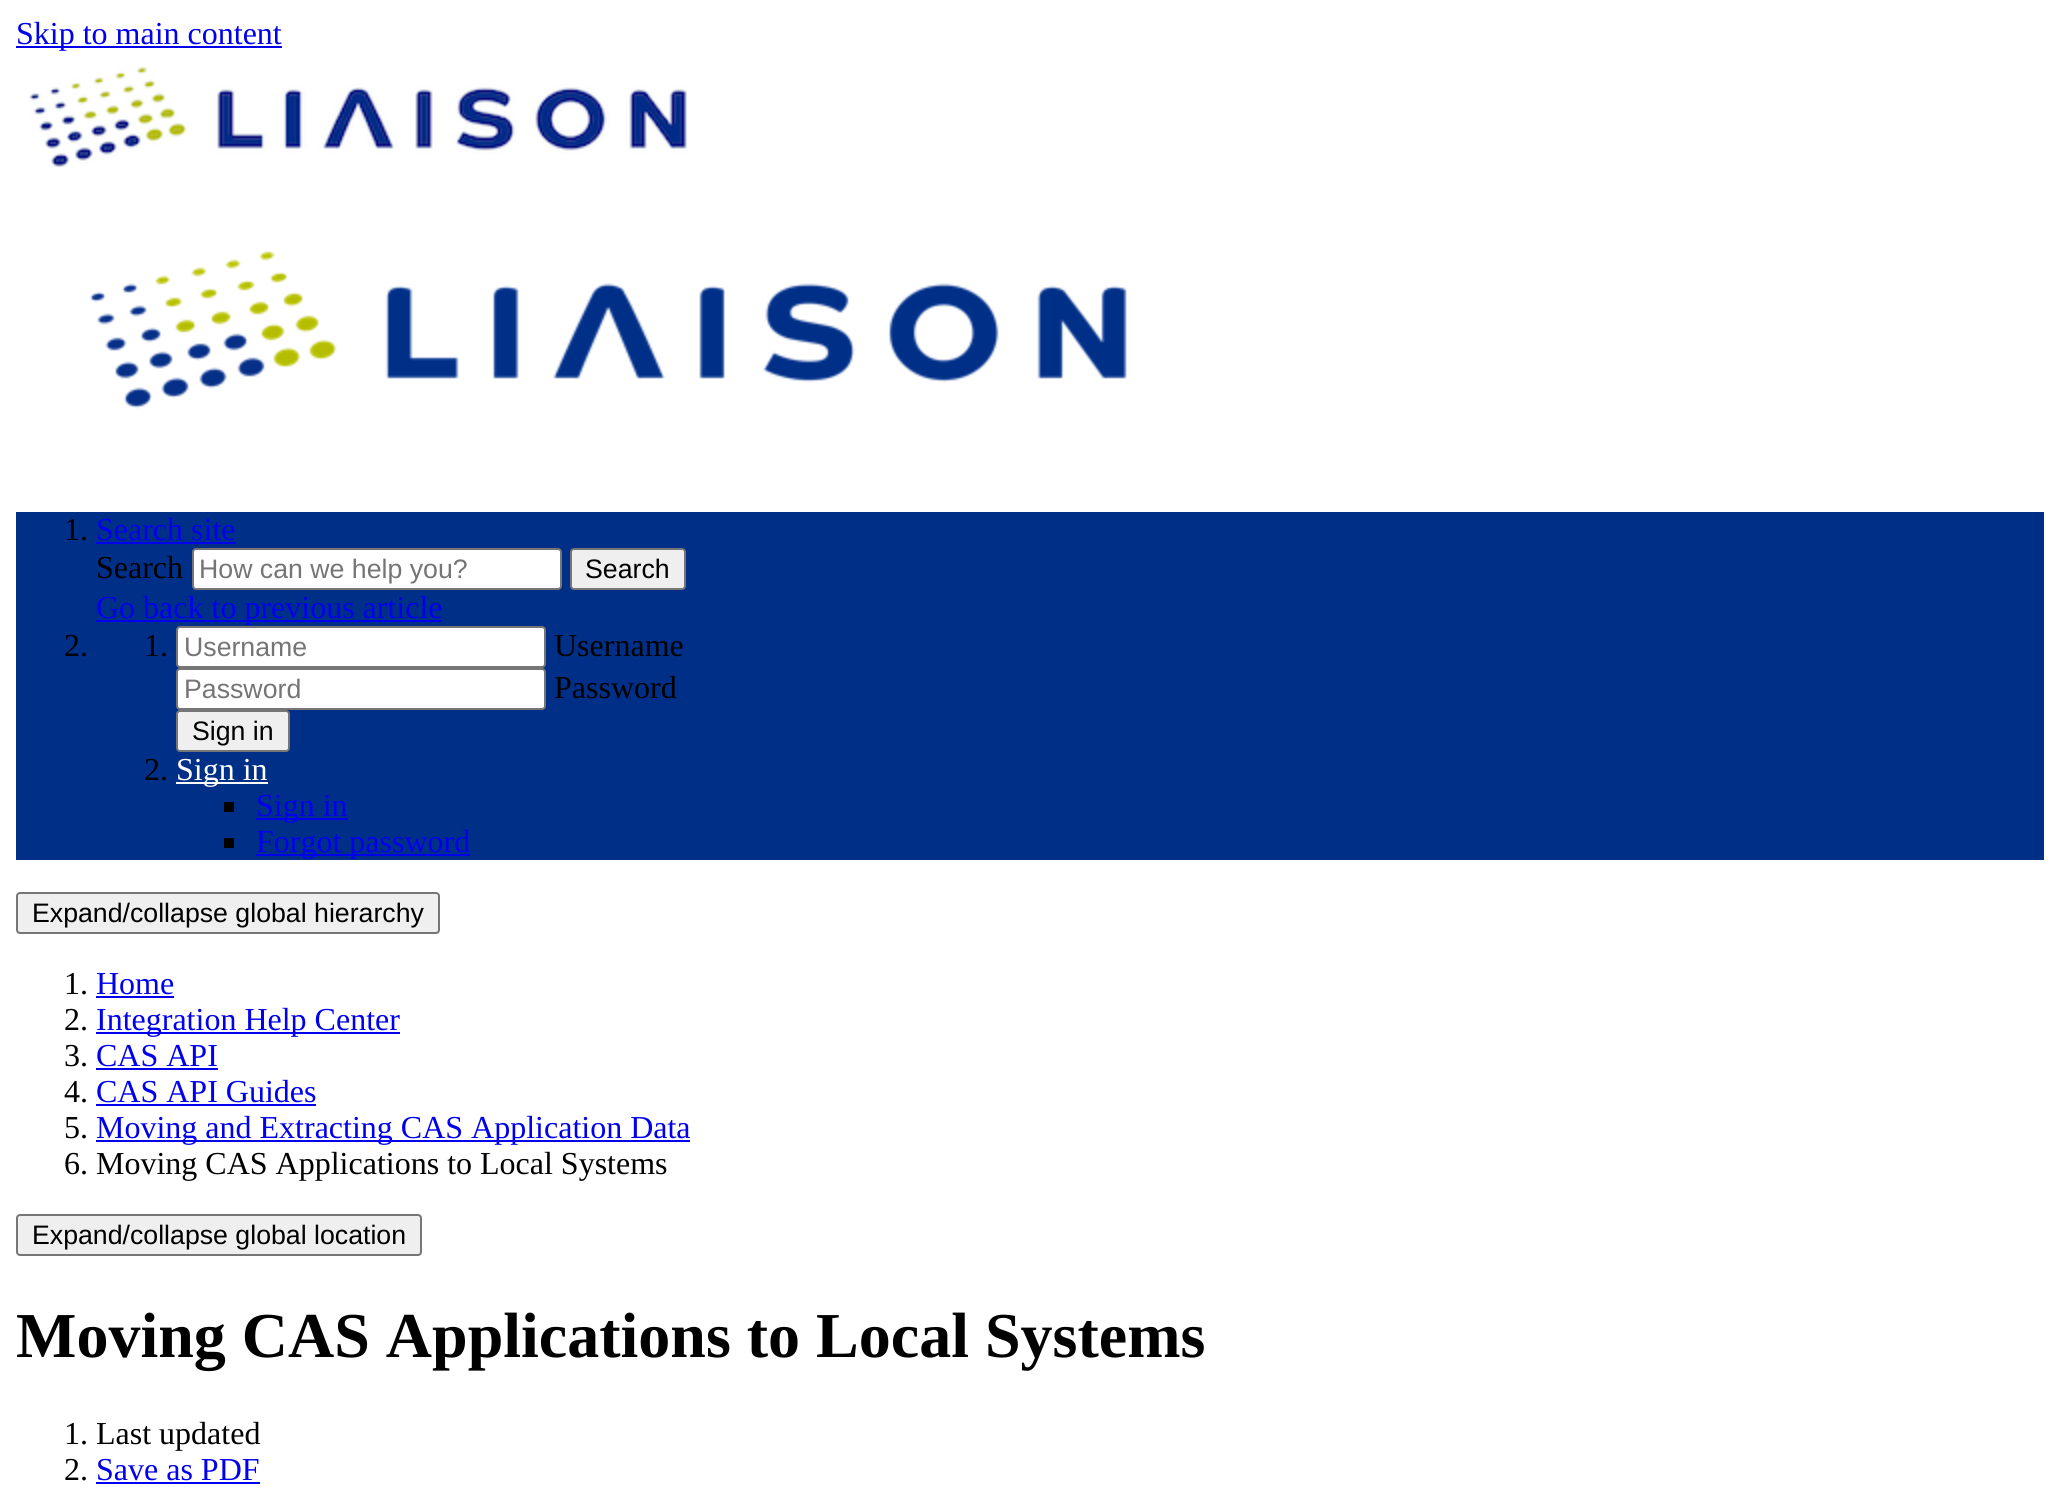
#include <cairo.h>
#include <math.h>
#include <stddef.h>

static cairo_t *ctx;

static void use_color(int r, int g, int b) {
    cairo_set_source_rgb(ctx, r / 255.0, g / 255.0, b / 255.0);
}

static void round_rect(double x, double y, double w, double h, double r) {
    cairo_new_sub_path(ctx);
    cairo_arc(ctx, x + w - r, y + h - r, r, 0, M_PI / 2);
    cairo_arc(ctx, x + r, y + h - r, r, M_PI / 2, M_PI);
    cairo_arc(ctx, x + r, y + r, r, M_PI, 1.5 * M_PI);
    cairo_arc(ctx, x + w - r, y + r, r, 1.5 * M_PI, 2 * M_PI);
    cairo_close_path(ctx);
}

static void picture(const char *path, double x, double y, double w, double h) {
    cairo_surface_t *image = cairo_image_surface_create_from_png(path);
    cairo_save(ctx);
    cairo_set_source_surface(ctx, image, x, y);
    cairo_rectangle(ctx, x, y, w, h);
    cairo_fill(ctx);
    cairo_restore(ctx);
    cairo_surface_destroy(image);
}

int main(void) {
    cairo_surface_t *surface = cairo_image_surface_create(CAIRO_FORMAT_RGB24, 2060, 1495);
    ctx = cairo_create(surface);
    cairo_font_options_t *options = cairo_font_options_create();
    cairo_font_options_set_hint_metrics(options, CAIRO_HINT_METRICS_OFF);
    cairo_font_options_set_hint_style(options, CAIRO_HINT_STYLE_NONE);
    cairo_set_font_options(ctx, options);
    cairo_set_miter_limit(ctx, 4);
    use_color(255, 255, 255);
    cairo_paint(ctx);
    use_color(0, 0, 238);
    cairo_rectangle(ctx, 16, 46, 266, 2);
    cairo_fill(ctx);
    cairo_select_font_face(ctx, "Liberation Serif", CAIRO_FONT_SLANT_NORMAL, CAIRO_FONT_WEIGHT_NORMAL);
    cairo_set_font_size(ctx, 32);
    cairo_move_to(ctx, 16, 44);
    cairo_show_text(ctx, "Skip to main content");
    picture("img1.png", 29, 66, 659, 102);
    picture("img2.png", 89, 251, 1038, 158);
    use_color(0, 47, 135);
    cairo_rectangle(ctx, 16, 512, 2028, 348);
    cairo_fill(ctx);
    use_color(0, 0, 0);
    cairo_move_to(ctx, 64, 540);
    cairo_show_text(ctx, "1.");
    use_color(0, 0, 238);
    cairo_move_to(ctx, 96, 540);
    cairo_show_text(ctx, "Search site");
    cairo_rectangle(ctx, 96, 542, 140, 2);
    cairo_fill(ctx);
    use_color(0, 0, 0);
    cairo_move_to(ctx, 96, 578);
    cairo_show_text(ctx, "Search");
    use_color(255, 255, 255);
    round_rect(193, 549, 368, 40, 3);
    cairo_fill_preserve(ctx);
    use_color(118, 118, 118);
    cairo_stroke(ctx);
    cairo_select_font_face(ctx, "Liberation Sans", CAIRO_FONT_SLANT_NORMAL, CAIRO_FONT_WEIGHT_NORMAL);
    cairo_set_font_size(ctx, 26.7);
    use_color(117, 117, 117);
    cairo_move_to(ctx, 199, 578);
    cairo_show_text(ctx, "How can we help you?");
    use_color(239, 239, 239);
    round_rect(571, 549, 114, 40, 3);
    cairo_fill_preserve(ctx);
    use_color(118, 118, 118);
    cairo_stroke(ctx);
    use_color(0, 0, 0);
    cairo_move_to(ctx, 585, 578);
    cairo_show_text(ctx, "Search");
    use_color(0, 0, 238);
    cairo_rectangle(ctx, 96, 620, 346, 2);
    cairo_fill(ctx);
    cairo_select_font_face(ctx, "Liberation Serif", CAIRO_FONT_SLANT_NORMAL, CAIRO_FONT_WEIGHT_NORMAL);
    cairo_set_font_size(ctx, 32);
    cairo_move_to(ctx, 96, 618);
    cairo_show_text(ctx, "Go back to previous article");
    use_color(0, 0, 0);
    cairo_move_to(ctx, 64, 656);
    cairo_show_text(ctx, "2.");
    cairo_move_to(ctx, 144, 656);
    cairo_show_text(ctx, "1.");
    use_color(255, 255, 255);
    round_rect(177, 627, 368, 40, 3);
    cairo_fill_preserve(ctx);
    use_color(118, 118, 118);
    cairo_stroke(ctx);
    cairo_select_font_face(ctx, "Liberation Sans", CAIRO_FONT_SLANT_NORMAL, CAIRO_FONT_WEIGHT_NORMAL);
    cairo_set_font_size(ctx, 26.7);
    use_color(117, 117, 117);
    cairo_move_to(ctx, 184, 656);
    cairo_show_text(ctx, "Username");
    cairo_select_font_face(ctx, "Liberation Serif", CAIRO_FONT_SLANT_NORMAL, CAIRO_FONT_WEIGHT_NORMAL);
    cairo_set_font_size(ctx, 32);
    use_color(0, 0, 0);
    cairo_move_to(ctx, 554, 656);
    cairo_show_text(ctx, "Username");
    use_color(255, 255, 255);
    round_rect(177, 669, 368, 40, 3);
    cairo_fill_preserve(ctx);
    use_color(118, 118, 118);
    cairo_stroke(ctx);
    cairo_select_font_face(ctx, "Liberation Sans", CAIRO_FONT_SLANT_NORMAL, CAIRO_FONT_WEIGHT_NORMAL);
    cairo_set_font_size(ctx, 26.7);
    use_color(117, 117, 117);
    cairo_move_to(ctx, 184, 698);
    cairo_show_text(ctx, "Password");
    cairo_select_font_face(ctx, "Liberation Serif", CAIRO_FONT_SLANT_NORMAL, CAIRO_FONT_WEIGHT_NORMAL);
    cairo_set_font_size(ctx, 32);
    use_color(0, 0, 0);
    cairo_move_to(ctx, 554, 698);
    cairo_show_text(ctx, "Password");
    use_color(239, 239, 239);
    round_rect(177, 711, 112, 40, 3);
    cairo_fill_preserve(ctx);
    use_color(118, 118, 118);
    cairo_stroke(ctx);
    cairo_select_font_face(ctx, "Liberation Sans", CAIRO_FONT_SLANT_NORMAL, CAIRO_FONT_WEIGHT_NORMAL);
    cairo_set_font_size(ctx, 26.7);
    use_color(0, 0, 0);
    cairo_move_to(ctx, 192, 740);
    cairo_show_text(ctx, "Sign in");
    cairo_select_font_face(ctx, "Liberation Serif", CAIRO_FONT_SLANT_NORMAL, CAIRO_FONT_WEIGHT_NORMAL);
    cairo_set_font_size(ctx, 32);
    cairo_move_to(ctx, 144, 780);
    cairo_show_text(ctx, "2.");
    use_color(255, 255, 255);
    cairo_rectangle(ctx, 176, 782, 92, 2);
    cairo_fill(ctx);
    cairo_move_to(ctx, 176, 780);
    cairo_show_text(ctx, "Sign in");
    use_color(0, 0, 0);
    cairo_rectangle(ctx, 224, 802, 10, 10);
    cairo_fill(ctx);
    use_color(0, 0, 238);
    cairo_rectangle(ctx, 256, 818, 92, 2);
    cairo_fill(ctx);
    cairo_move_to(ctx, 256, 816);
    cairo_show_text(ctx, "Sign in");
    use_color(0, 0, 0);
    cairo_rectangle(ctx, 224, 838, 10, 10);
    cairo_fill(ctx);
    use_color(0, 0, 238);
    cairo_rectangle(ctx, 256, 854, 214, 2);
    cairo_fill(ctx);
    cairo_move_to(ctx, 256, 852);
    cairo_show_text(ctx, "Forgot password");
    use_color(239, 239, 239);
    round_rect(17, 893, 422, 40, 3);
    cairo_fill_preserve(ctx);
    use_color(118, 118, 118);
    cairo_stroke(ctx);
    cairo_select_font_face(ctx, "Liberation Sans", CAIRO_FONT_SLANT_NORMAL, CAIRO_FONT_WEIGHT_NORMAL);
    cairo_set_font_size(ctx, 26.7);
    use_color(0, 0, 0);
    cairo_move_to(ctx, 32, 922);
    cairo_show_text(ctx, "Expand/collapse global hierarchy");
    cairo_select_font_face(ctx, "Liberation Serif", CAIRO_FONT_SLANT_NORMAL, CAIRO_FONT_WEIGHT_NORMAL);
    cairo_set_font_size(ctx, 32);
    cairo_move_to(ctx, 64, 994);
    cairo_show_text(ctx, "1.");
    use_color(0, 0, 238);
    cairo_move_to(ctx, 96, 994);
    cairo_show_text(ctx, "Home");
    cairo_rectangle(ctx, 96, 996, 78, 2);
    cairo_fill(ctx);
    use_color(0, 0, 0);
    cairo_move_to(ctx, 64, 1030);
    cairo_show_text(ctx, "2.");
    use_color(0, 0, 238);
    cairo_rectangle(ctx, 96, 1032, 304, 2);
    cairo_fill(ctx);
    cairo_move_to(ctx, 96, 1030);
    cairo_show_text(ctx, "Integration Help Center");
    use_color(0, 0, 0);
    cairo_move_to(ctx, 64, 1066);
    cairo_show_text(ctx, "3.");
    use_color(0, 0, 238);
    cairo_move_to(ctx, 96, 1066);
    cairo_show_text(ctx, "CAS API");
    cairo_rectangle(ctx, 96, 1068, 122, 2);
    cairo_fill(ctx);
    use_color(0, 0, 0);
    cairo_move_to(ctx, 64, 1102);
    cairo_show_text(ctx, "4.");
    use_color(0, 0, 238);
    cairo_move_to(ctx, 96, 1102);
    cairo_show_text(ctx, "CAS API Guides");
    cairo_rectangle(ctx, 96, 1104, 220, 2);
    cairo_fill(ctx);
    use_color(0, 0, 0);
    cairo_move_to(ctx, 64, 1138);
    cairo_show_text(ctx, "5.");
    use_color(0, 0, 238);
    cairo_rectangle(ctx, 96, 1140, 594, 2);
    cairo_fill(ctx);
    cairo_move_to(ctx, 96, 1138);
    cairo_show_text(ctx, "Moving and Extracting CAS Application Data");
    use_color(0, 0, 0);
    cairo_move_to(ctx, 64, 1174);
    cairo_show_text(ctx, "6. Moving CAS Applications to Local Systems");
    use_color(239, 239, 239);
    round_rect(17, 1215, 404, 40, 3);
    cairo_fill_preserve(ctx);
    use_color(118, 118, 118);
    cairo_stroke(ctx);
    cairo_select_font_face(ctx, "Liberation Sans", CAIRO_FONT_SLANT_NORMAL, CAIRO_FONT_WEIGHT_NORMAL);
    cairo_set_font_size(ctx, 26.7);
    use_color(0, 0, 0);
    cairo_move_to(ctx, 32, 1244);
    cairo_show_text(ctx, "Expand/collapse global location");
    cairo_select_font_face(ctx, "Liberation Serif", CAIRO_FONT_SLANT_NORMAL, CAIRO_FONT_WEIGHT_BOLD);
    cairo_set_font_size(ctx, 64);
    cairo_move_to(ctx, 16, 1357);
    cairo_show_text(ctx, "Moving CAS Applications to Local Systems");
    cairo_select_font_face(ctx, "Liberation Serif", CAIRO_FONT_SLANT_NORMAL, CAIRO_FONT_WEIGHT_NORMAL);
    cairo_set_font_size(ctx, 32);
    cairo_move_to(ctx, 64, 1444);
    cairo_show_text(ctx, "1. Last updated");
    cairo_move_to(ctx, 64, 1480);
    cairo_show_text(ctx, "2.");
    use_color(0, 0, 238);
    cairo_move_to(ctx, 96, 1480);
    cairo_show_text(ctx, "Save as PDF");
    cairo_rectangle(ctx, 96, 1482, 164, 2);
    cairo_fill(ctx);
    cairo_surface_write_to_png(surface, "result.png");
    cairo_font_options_destroy(options);
    cairo_destroy(ctx);
    cairo_surface_destroy(surface);
    return 0;
}
